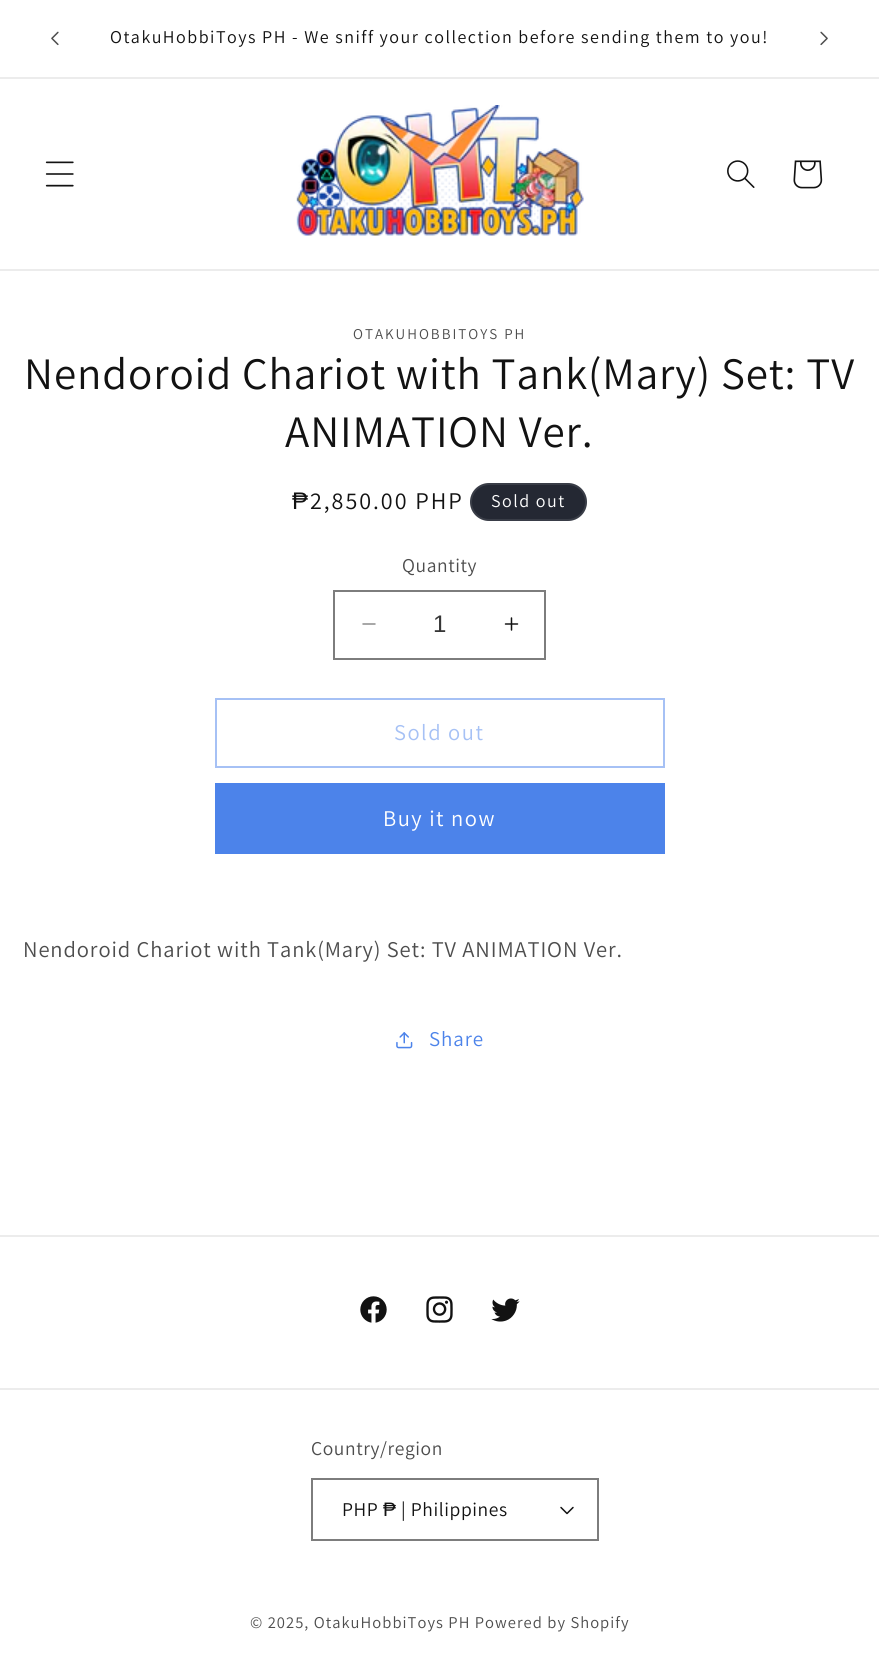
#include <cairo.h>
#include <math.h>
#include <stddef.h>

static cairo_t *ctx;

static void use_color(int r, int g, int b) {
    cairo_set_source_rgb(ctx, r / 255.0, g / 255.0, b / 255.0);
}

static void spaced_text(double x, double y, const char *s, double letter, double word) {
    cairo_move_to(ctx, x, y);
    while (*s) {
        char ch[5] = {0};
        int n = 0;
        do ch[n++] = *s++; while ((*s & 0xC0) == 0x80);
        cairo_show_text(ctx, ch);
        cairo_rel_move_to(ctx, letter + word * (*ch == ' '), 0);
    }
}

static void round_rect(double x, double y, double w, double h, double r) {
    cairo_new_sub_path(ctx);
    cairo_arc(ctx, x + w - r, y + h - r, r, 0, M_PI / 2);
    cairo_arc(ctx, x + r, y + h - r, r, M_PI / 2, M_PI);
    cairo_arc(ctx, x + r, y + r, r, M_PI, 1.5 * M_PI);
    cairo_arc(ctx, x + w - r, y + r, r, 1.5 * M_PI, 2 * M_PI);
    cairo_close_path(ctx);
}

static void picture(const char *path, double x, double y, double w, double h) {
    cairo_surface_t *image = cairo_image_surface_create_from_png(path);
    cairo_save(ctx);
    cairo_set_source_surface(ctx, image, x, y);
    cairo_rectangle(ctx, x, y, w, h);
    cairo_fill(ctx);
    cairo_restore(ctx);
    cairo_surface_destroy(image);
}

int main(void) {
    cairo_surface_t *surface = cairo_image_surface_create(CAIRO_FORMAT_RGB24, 879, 1676);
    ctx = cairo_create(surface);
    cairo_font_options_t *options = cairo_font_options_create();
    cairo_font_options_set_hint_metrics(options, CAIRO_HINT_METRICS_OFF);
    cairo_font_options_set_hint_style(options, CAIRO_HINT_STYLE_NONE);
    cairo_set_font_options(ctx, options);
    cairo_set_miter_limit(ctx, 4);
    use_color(255, 255, 255);
    cairo_paint(ctx);
    use_color(236, 236, 236);
    cairo_rectangle(ctx, 0, 77, 879, 2);
    cairo_fill(ctx);
    picture("img1.png", 51, 31, 8, 15);
    cairo_select_font_face(ctx, "Assistant", CAIRO_FONT_SLANT_NORMAL, CAIRO_FONT_WEIGHT_NORMAL);
    cairo_set_font_size(ctx, 18);
    use_color(18, 18, 18);
    spaced_text(110, 43, "OtakuHobbiToys PH - We sniff your collection before sending them to you!", 1.5, 0);
    picture("img2.png", 820, 31, 8, 15);
    use_color(236, 236, 236);
    cairo_rectangle(ctx, 0, 269, 879, 2);
    cairo_fill(ctx);
    picture("img3.png", 45, 161, 29, 26);
    picture("img4.png", 296, 105, 288, 131);
    picture("img5.png", 727, 160, 28, 28);
    picture("img6.png", 793, 160, 30, 29);
    cairo_set_font_size(ctx, 15);
    use_color(77, 77, 77);
    spaced_text(353, 339, "OTAKUHOBBITOYS PH", 2, 0);
    cairo_set_font_size(ctx, 45);
    use_color(18, 18, 18);
    spaced_text(24, 389, "Nendoroid Chariot with Tank(Mary) Set: TV", 0.9, 0);
    spaced_text(285, 447, "ANIMATION Ver.", 0.9, 0);
    cairo_select_font_face(ctx, "Liberation Sans", CAIRO_FONT_SLANT_NORMAL, CAIRO_FONT_WEIGHT_NORMAL);
    cairo_set_font_size(ctx, 24);
    spaced_text(292, 509, "₱", 2, 0);
    cairo_select_font_face(ctx, "Assistant", CAIRO_FONT_SLANT_NORMAL, CAIRO_FONT_WEIGHT_NORMAL);
    spaced_text(310, 509, "2,850.00 PHP", 2, 0);
    use_color(36, 40, 51);
    round_rect(470, 483, 117, 38, 19);
    cairo_fill(ctx);
    round_rect(471, 484, 115, 36, 18);
    cairo_set_source_rgba(ctx, 1, 1, 1, 0.1);
    cairo_stroke(ctx);
    cairo_set_font_size(ctx, 18);
    use_color(255, 255, 255);
    spaced_text(491, 507, "Sold out", 1.5, 0);
    cairo_set_font_size(ctx, 19.5);
    use_color(77, 77, 77);
    spaced_text(402, 572, "Quantity", 0.6, 0);
    picture("img7.png", 362, 623, 14, 2);
    picture("img8.png", 504, 617, 15, 14);
    cairo_rectangle(ctx, 334, 591, 211, 68);
    use_color(125, 125, 125);
    cairo_stroke(ctx);
    cairo_select_font_face(ctx, "Liberation Sans", CAIRO_FONT_SLANT_NORMAL, CAIRO_FONT_WEIGHT_NORMAL);
    cairo_set_font_size(ctx, 24);
    use_color(54, 54, 54);
    cairo_move_to(ctx, 433, 632);
    cairo_show_text(ctx, "1");
    cairo_rectangle(ctx, 216, 699, 448, 68);
    use_color(166, 193, 245);
    cairo_stroke(ctx);
    cairo_select_font_face(ctx, "Assistant", CAIRO_FONT_SLANT_NORMAL, CAIRO_FONT_WEIGHT_NORMAL);
    cairo_set_font_size(ctx, 22.5);
    spaced_text(394, 740, "Sold out", 1.5, 0);
    use_color(76, 131, 234);
    cairo_rectangle(ctx, 215, 783, 450, 71);
    cairo_fill(ctx);
    use_color(255, 255, 255);
    spaced_text(383, 826, "Buy it now", 1.5, 0);
    use_color(77, 77, 77);
    spaced_text(23, 957, "Nendoroid Chariot with Tank(Mary) Set: TV ANIMATION Ver.", 0.9, 0);
    picture("img9.png", 396, 1032, 17, 17);
    cairo_set_font_size(ctx, 21);
    use_color(76, 131, 234);
    spaced_text(429, 1046, "Share", 0.9, 0);
    use_color(236, 236, 236);
    cairo_rectangle(ctx, 0, 1235, 879, 2);
    cairo_fill(ctx);
    picture("img10.png", 360, 1296, 27, 27);
    picture("img11.png", 426, 1296, 27, 27);
    picture("img12.png", 491, 1298, 29, 24);
    cairo_rectangle(ctx, 0, 1388, 879, 2);
    cairo_fill(ctx);
    cairo_set_font_size(ctx, 19.5);
    use_color(77, 77, 77);
    spaced_text(311, 1455, "Country/region", 0.6, 0);
    picture("img13.png", 560, 1506, 14, 9);
    cairo_rectangle(ctx, 312, 1479, 286, 61);
    use_color(125, 125, 125);
    cairo_stroke(ctx);
    use_color(18, 18, 18);
    spaced_text(342, 1516, "PHP", 0.6, 0);
    cairo_select_font_face(ctx, "Liberation Sans", CAIRO_FONT_SLANT_NORMAL, CAIRO_FONT_WEIGHT_NORMAL);
    spaced_text(383, 1516, "₱", 0.6, 0);
    cairo_select_font_face(ctx, "Assistant", CAIRO_FONT_SLANT_NORMAL, CAIRO_FONT_WEIGHT_NORMAL);
    spaced_text(401, 1516, "| Philippines", 0.6, 0);
    cairo_set_font_size(ctx, 16.5);
    use_color(77, 77, 77);
    spaced_text(250, 1628, "© 2025, OtakuHobbiToys PH Powered by Shopify", 1.05, 0);
    cairo_surface_write_to_png(surface, "result.png");
    cairo_font_options_destroy(options);
    cairo_destroy(ctx);
    cairo_surface_destroy(surface);
    return 0;
}
